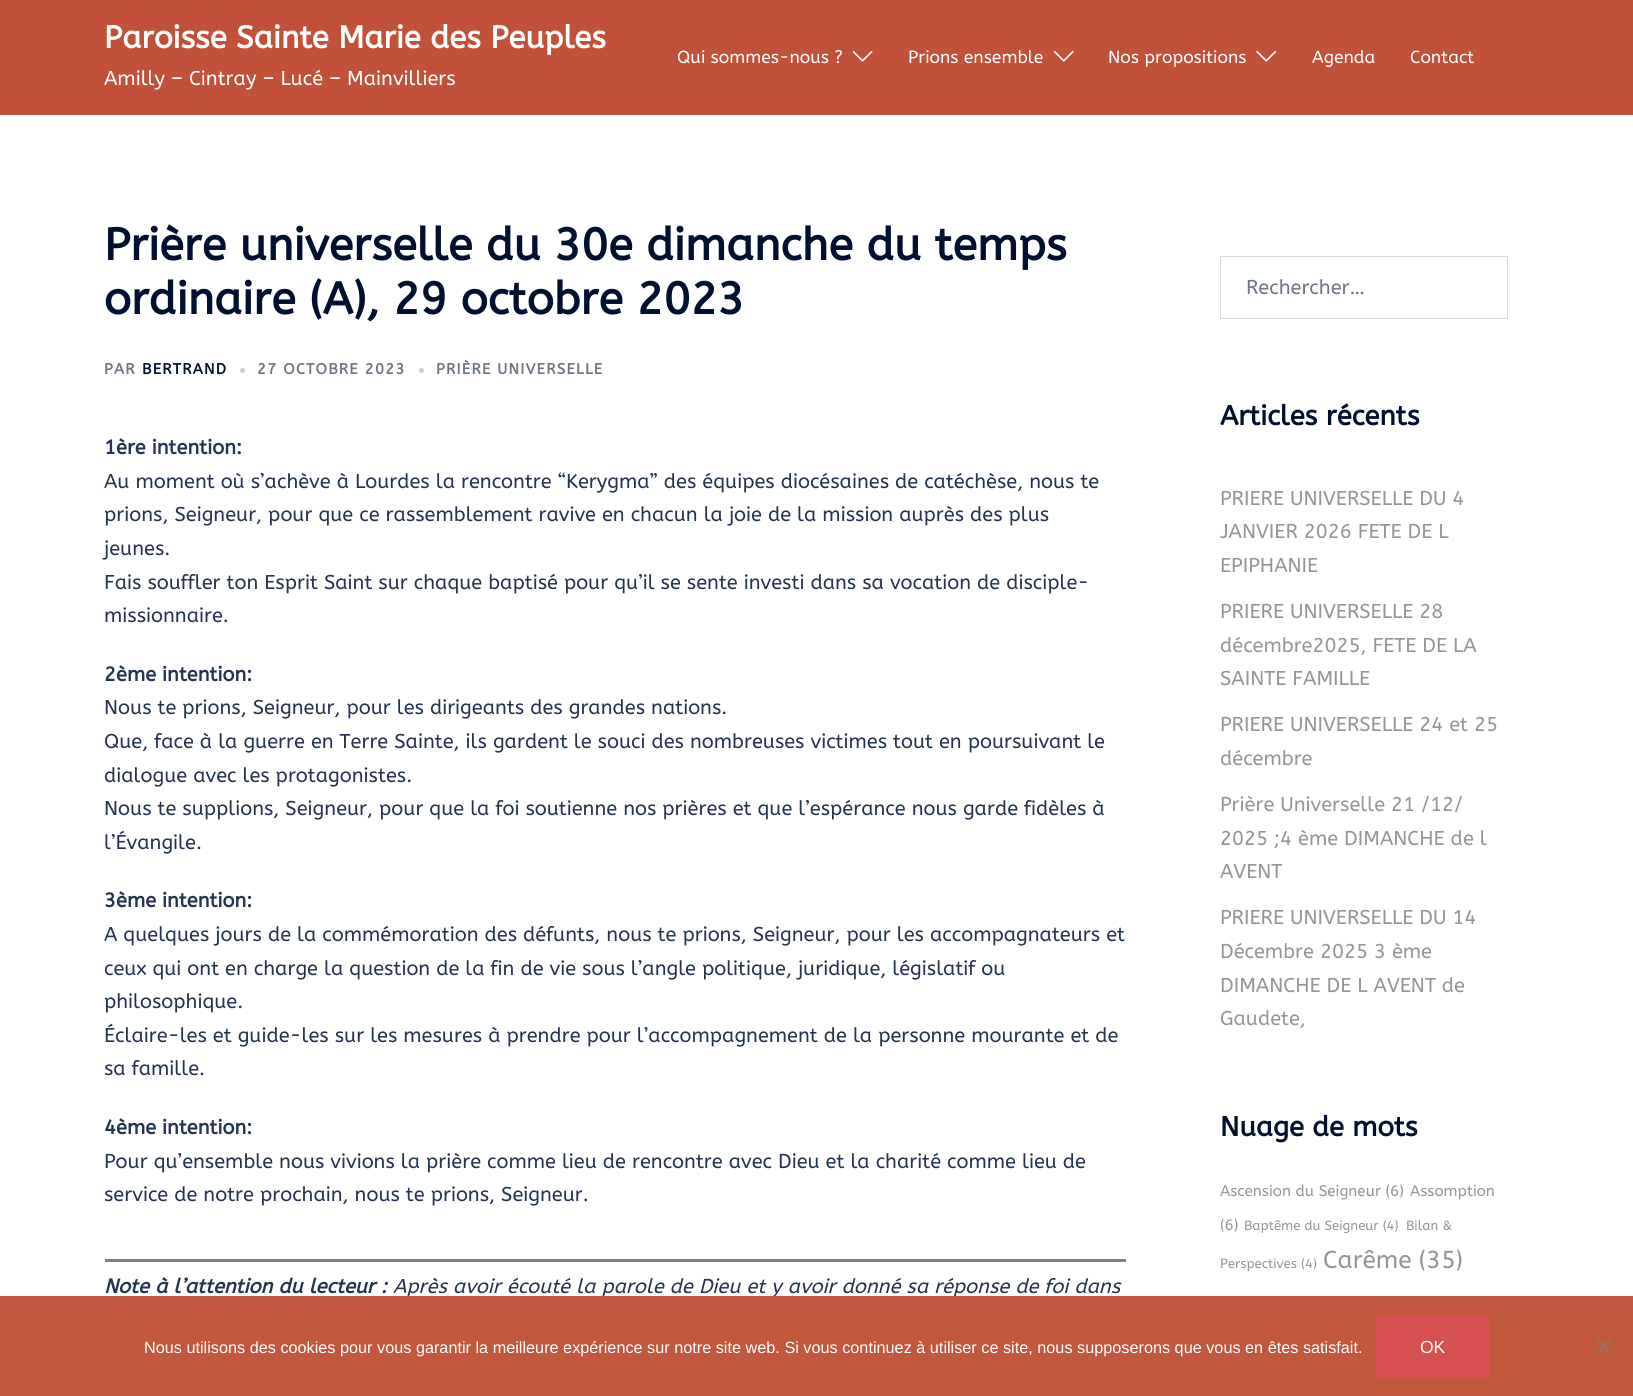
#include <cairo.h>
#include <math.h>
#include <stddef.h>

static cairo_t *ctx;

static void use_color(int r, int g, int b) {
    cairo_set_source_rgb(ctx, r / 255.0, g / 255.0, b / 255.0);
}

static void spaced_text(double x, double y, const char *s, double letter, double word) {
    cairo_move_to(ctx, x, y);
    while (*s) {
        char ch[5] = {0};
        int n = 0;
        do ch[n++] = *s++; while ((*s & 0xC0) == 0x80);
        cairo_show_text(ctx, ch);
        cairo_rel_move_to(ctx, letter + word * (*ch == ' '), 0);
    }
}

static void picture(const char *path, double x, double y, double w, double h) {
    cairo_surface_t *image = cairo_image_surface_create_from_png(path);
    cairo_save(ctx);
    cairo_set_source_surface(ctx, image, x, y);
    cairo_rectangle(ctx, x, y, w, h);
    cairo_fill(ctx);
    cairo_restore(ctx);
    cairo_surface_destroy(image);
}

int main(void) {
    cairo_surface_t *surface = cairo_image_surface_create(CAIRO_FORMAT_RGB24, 1633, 1396);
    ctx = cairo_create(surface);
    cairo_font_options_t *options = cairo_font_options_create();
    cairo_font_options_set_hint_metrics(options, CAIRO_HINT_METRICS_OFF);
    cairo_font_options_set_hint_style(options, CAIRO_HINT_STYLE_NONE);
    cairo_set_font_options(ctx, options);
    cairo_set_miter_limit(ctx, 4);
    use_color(255, 255, 255);
    cairo_paint(ctx);
    use_color(193, 82, 57);
    cairo_rectangle(ctx, 0, 0, 1633, 115);
    cairo_fill(ctx);
    cairo_select_font_face(ctx, "ABeeZee", CAIRO_FONT_SLANT_NORMAL, CAIRO_FONT_WEIGHT_BOLD);
    cairo_set_font_size(ctx, 31.25);
    use_color(255, 255, 255);
    cairo_move_to(ctx, 104, 48);
    cairo_show_text(ctx, "Paroisse Sainte Marie des Peuples");
    cairo_select_font_face(ctx, "ABeeZee", CAIRO_FONT_SLANT_NORMAL, CAIRO_FONT_WEIGHT_NORMAL);
    cairo_set_font_size(ctx, 20);
    cairo_move_to(ctx, 104, 85);
    cairo_show_text(ctx, "Amilly – Cintray – Lucé – Mainvilliers");
    cairo_set_font_size(ctx, 17.5);
    cairo_move_to(ctx, 677, 63);
    cairo_show_text(ctx, "Qui sommes-nous ?");
    picture("img1.png", 853, 50, 20, 12);
    cairo_move_to(ctx, 908, 63);
    cairo_show_text(ctx, "Prions ensemble");
    picture("img2.png", 1054, 50, 20, 12);
    cairo_move_to(ctx, 1108, 63);
    cairo_show_text(ctx, "Nos propositions");
    picture("img3.png", 1256, 50, 20, 12);
    cairo_move_to(ctx, 1312, 63);
    cairo_show_text(ctx, "Agenda");
    cairo_move_to(ctx, 1410, 63);
    cairo_show_text(ctx, "Contact");
    cairo_select_font_face(ctx, "ABeeZee", CAIRO_FONT_SLANT_NORMAL, CAIRO_FONT_WEIGHT_BOLD);
    cairo_set_font_size(ctx, 45);
    use_color(0, 16, 46);
    cairo_move_to(ctx, 104, 260);
    cairo_show_text(ctx, "Prière universelle du 30e dimanche du temps");
    cairo_move_to(ctx, 104, 314);
    cairo_show_text(ctx, "ordinaire (A), 29 octobre 2023");
    cairo_set_font_size(ctx, 15);
    use_color(109, 118, 133);
    spaced_text(104, 374, "PAR", 1.25, 0);
    use_color(0, 16, 46);
    spaced_text(142, 374, "BERTRAND", 1.25, 0);
    use_color(204, 207, 213);
    cairo_new_path(ctx);
    cairo_arc(ctx, 242.5, 370.5, 2.5, 0, 2 * M_PI);
    cairo_fill(ctx);
    use_color(109, 118, 133);
    spaced_text(257, 374, "27 OCTOBRE 2023", 1.25, 0);
    use_color(204, 207, 213);
    cairo_new_path(ctx);
    cairo_arc(ctx, 421.5, 370.5, 2.5, 0, 2 * M_PI);
    cairo_fill(ctx);
    use_color(109, 118, 133);
    spaced_text(436, 374, "PRIÈRE UNIVERSELLE", 1.25, 0);
    cairo_set_font_size(ctx, 20);
    use_color(35, 52, 82);
    cairo_move_to(ctx, 104, 454);
    cairo_show_text(ctx, "1ère intention:");
    cairo_select_font_face(ctx, "ABeeZee", CAIRO_FONT_SLANT_NORMAL, CAIRO_FONT_WEIGHT_NORMAL);
    cairo_move_to(ctx, 104, 488);
    cairo_show_text(ctx, "Au moment où s’achève à Lourdes la rencontre “Kerygma” des équipes diocésaines de catéchèse, nous te");
    cairo_move_to(ctx, 104, 521);
    cairo_show_text(ctx, "prions, Seigneur, pour que ce rassemblement ravive en chacun la joie de la mission auprès des plus");
    cairo_move_to(ctx, 104, 555);
    cairo_show_text(ctx, "jeunes.");
    cairo_move_to(ctx, 104, 589);
    cairo_show_text(ctx, "Fais souffler ton Esprit Saint sur chaque baptisé pour qu’il se sente investi dans sa vocation de disciple-");
    cairo_move_to(ctx, 104, 622);
    cairo_show_text(ctx, "missionnaire.");
    cairo_select_font_face(ctx, "ABeeZee", CAIRO_FONT_SLANT_NORMAL, CAIRO_FONT_WEIGHT_BOLD);
    cairo_move_to(ctx, 104, 681);
    cairo_show_text(ctx, "2ème intention:");
    cairo_select_font_face(ctx, "ABeeZee", CAIRO_FONT_SLANT_NORMAL, CAIRO_FONT_WEIGHT_NORMAL);
    cairo_move_to(ctx, 104, 714);
    cairo_show_text(ctx, "Nous te prions, Seigneur, pour les dirigeants des grandes nations.");
    cairo_move_to(ctx, 104, 748);
    cairo_show_text(ctx, "Que, face à la guerre en Terre Sainte, ils gardent le souci des nombreuses victimes tout en poursuivant le");
    cairo_move_to(ctx, 104, 782);
    cairo_show_text(ctx, "dialogue avec les protagonistes.");
    cairo_move_to(ctx, 104, 815);
    cairo_show_text(ctx, "Nous te supplions, Seigneur, pour que la foi soutienne nos prières et que l’espérance nous garde fidèles à");
    cairo_move_to(ctx, 104, 849);
    cairo_show_text(ctx, "l’Évangile.");
    cairo_select_font_face(ctx, "ABeeZee", CAIRO_FONT_SLANT_NORMAL, CAIRO_FONT_WEIGHT_BOLD);
    cairo_move_to(ctx, 104, 907);
    cairo_show_text(ctx, "3ème intention:");
    cairo_select_font_face(ctx, "ABeeZee", CAIRO_FONT_SLANT_NORMAL, CAIRO_FONT_WEIGHT_NORMAL);
    cairo_move_to(ctx, 104, 941);
    cairo_show_text(ctx, "A quelques jours de la commémoration des défunts, nous te prions, Seigneur, pour les accompagnateurs et");
    cairo_move_to(ctx, 104, 975);
    cairo_show_text(ctx, "ceux qui ont en charge la question de la fin de vie sous l’angle politique, juridique, législatif ou");
    cairo_move_to(ctx, 104, 1008);
    cairo_show_text(ctx, "philosophique.");
    cairo_move_to(ctx, 104, 1042);
    cairo_show_text(ctx, "Éclaire-les et guide-les sur les mesures à prendre pour l’accompagnement de la personne mourante et de");
    cairo_move_to(ctx, 104, 1075);
    cairo_show_text(ctx, "sa famille.");
    cairo_select_font_face(ctx, "ABeeZee", CAIRO_FONT_SLANT_NORMAL, CAIRO_FONT_WEIGHT_BOLD);
    cairo_move_to(ctx, 104, 1134);
    cairo_show_text(ctx, "4ème intention:");
    cairo_select_font_face(ctx, "ABeeZee", CAIRO_FONT_SLANT_NORMAL, CAIRO_FONT_WEIGHT_NORMAL);
    cairo_move_to(ctx, 104, 1168);
    cairo_show_text(ctx, "Pour qu’ensemble nous vivions la prière comme lieu de rencontre avec Dieu et la charité comme lieu de");
    cairo_move_to(ctx, 104, 1201);
    cairo_show_text(ctx, "service de notre prochain, nous te prions, Seigneur.");
    use_color(128, 128, 128);
    cairo_rectangle(ctx, 105, 1259, 1021, 3);
    cairo_fill(ctx);
    cairo_select_font_face(ctx, "ABeeZee", CAIRO_FONT_SLANT_ITALIC, CAIRO_FONT_WEIGHT_BOLD);
    use_color(35, 52, 82);
    cairo_move_to(ctx, 104, 1293);
    cairo_show_text(ctx, "Note à l’attention du lecteur :");
    cairo_select_font_face(ctx, "ABeeZee", CAIRO_FONT_SLANT_ITALIC, CAIRO_FONT_WEIGHT_NORMAL);
    cairo_move_to(ctx, 393, 1293);
    cairo_show_text(ctx, "Après avoir écouté la parole de Dieu et y avoir donné sa réponse de foi dans");
    cairo_rectangle(ctx, 1220.5, 256.5, 287, 62);
    use_color(219, 219, 219);
    cairo_set_line_width(ctx, 1);
    cairo_stroke(ctx);
    cairo_select_font_face(ctx, "ABeeZee", CAIRO_FONT_SLANT_NORMAL, CAIRO_FONT_WEIGHT_NORMAL);
    use_color(109, 118, 133);
    cairo_move_to(ctx, 1246, 294);
    cairo_show_text(ctx, "Rechercher…");
    cairo_select_font_face(ctx, "ABeeZee", CAIRO_FONT_SLANT_NORMAL, CAIRO_FONT_WEIGHT_BOLD);
    cairo_set_font_size(ctx, 27.5);
    use_color(0, 16, 46);
    cairo_move_to(ctx, 1220, 425);
    cairo_show_text(ctx, "Articles récents");
    cairo_select_font_face(ctx, "ABeeZee", CAIRO_FONT_SLANT_NORMAL, CAIRO_FONT_WEIGHT_NORMAL);
    cairo_set_font_size(ctx, 20);
    use_color(150, 150, 150);
    cairo_move_to(ctx, 1220, 505);
    cairo_show_text(ctx, "PRIERE UNIVERSELLE DU 4");
    cairo_move_to(ctx, 1220, 538);
    cairo_show_text(ctx, "JANVIER 2026 FETE DE L");
    cairo_move_to(ctx, 1220, 572);
    cairo_show_text(ctx, "EPIPHANIE");
    cairo_move_to(ctx, 1220, 618);
    cairo_show_text(ctx, "PRIERE UNIVERSELLE 28");
    cairo_move_to(ctx, 1220, 652);
    cairo_show_text(ctx, "décembre2025, FETE DE LA");
    cairo_move_to(ctx, 1220, 685);
    cairo_show_text(ctx, "SAINTE FAMILLE");
    cairo_move_to(ctx, 1220, 731);
    cairo_show_text(ctx, "PRIERE UNIVERSELLE 24 et 25");
    cairo_move_to(ctx, 1220, 765);
    cairo_show_text(ctx, "décembre");
    cairo_move_to(ctx, 1220, 811);
    cairo_show_text(ctx, "Prière Universelle 21 /12/");
    cairo_move_to(ctx, 1220, 845);
    cairo_show_text(ctx, "2025 ;4 ème DIMANCHE de l");
    cairo_move_to(ctx, 1220, 878);
    cairo_show_text(ctx, "AVENT");
    cairo_move_to(ctx, 1220, 924);
    cairo_show_text(ctx, "PRIERE UNIVERSELLE DU 14");
    cairo_move_to(ctx, 1220, 958);
    cairo_show_text(ctx, "Décembre 2025 3 ème");
    cairo_move_to(ctx, 1220, 992);
    cairo_show_text(ctx, "DIMANCHE DE L AVENT de");
    cairo_move_to(ctx, 1220, 1025);
    cairo_show_text(ctx, "Gaudete,");
    cairo_select_font_face(ctx, "ABeeZee", CAIRO_FONT_SLANT_NORMAL, CAIRO_FONT_WEIGHT_BOLD);
    cairo_set_font_size(ctx, 27.5);
    use_color(0, 16, 46);
    cairo_move_to(ctx, 1220, 1136);
    cairo_show_text(ctx, "Nuage de mots");
    cairo_select_font_face(ctx, "ABeeZee", CAIRO_FONT_SLANT_NORMAL, CAIRO_FONT_WEIGHT_NORMAL);
    cairo_set_font_size(ctx, 15.25);
    use_color(150, 150, 150);
    cairo_move_to(ctx, 1220, 1196);
    cairo_show_text(ctx, "Ascension du Seigneur (6)");
    cairo_move_to(ctx, 1410, 1196);
    cairo_show_text(ctx, "Assomption");
    cairo_move_to(ctx, 1220, 1230);
    cairo_show_text(ctx, "(6)");
    cairo_set_font_size(ctx, 13.25);
    cairo_move_to(ctx, 1244, 1230);
    cairo_show_text(ctx, "Baptême du Seigneur (4)");
    cairo_move_to(ctx, 1406, 1230);
    cairo_show_text(ctx, "Bilan &");
    cairo_move_to(ctx, 1220, 1268);
    cairo_show_text(ctx, "Perspectives (4)");
    cairo_set_font_size(ctx, 24.5);
    cairo_move_to(ctx, 1323, 1268);
    cairo_show_text(ctx, "Carême (35)");
    use_color(193, 87, 60);
    cairo_rectangle(ctx, 0, 1296, 1633, 100);
    cairo_fill(ctx);
    cairo_select_font_face(ctx, "Liberation Sans", CAIRO_FONT_SLANT_NORMAL, CAIRO_FONT_WEIGHT_NORMAL);
    cairo_set_font_size(ctx, 16.25);
    use_color(255, 255, 255);
    cairo_move_to(ctx, 144, 1353);
    cairo_show_text(ctx, "Nous utilisons des cookies pour vous garantir la meilleure expérience sur notre site web. Si vous continuez à utiliser ce site, nous supposerons que vous en êtes satisfait.");
    use_color(214, 80, 80);
    cairo_rectangle(ctx, 1375, 1315, 115, 63);
    cairo_fill(ctx);
    cairo_set_font_size(ctx, 17.5);
    use_color(255, 255, 255);
    cairo_move_to(ctx, 1420, 1353);
    cairo_show_text(ctx, "OK");
    use_color(161, 108, 94);
    cairo_new_path(ctx);
    cairo_move_to(ctx, 1609.5, 1339.5);
    cairo_line_to(ctx, 1611.5, 1341);
    cairo_line_to(ctx, 1598, 1354.5);
    cairo_line_to(ctx, 1596, 1352.5);
    cairo_close_path(ctx);
    cairo_fill(ctx);
    cairo_new_path(ctx);
    cairo_move_to(ctx, 1596, 1341);
    cairo_line_to(ctx, 1598, 1339.5);
    cairo_line_to(ctx, 1611.5, 1352.5);
    cairo_line_to(ctx, 1609.5, 1354.5);
    cairo_close_path(ctx);
    cairo_fill(ctx);
    cairo_surface_write_to_png(surface, "result.png");
    cairo_font_options_destroy(options);
    cairo_destroy(ctx);
    cairo_surface_destroy(surface);
    return 0;
}
